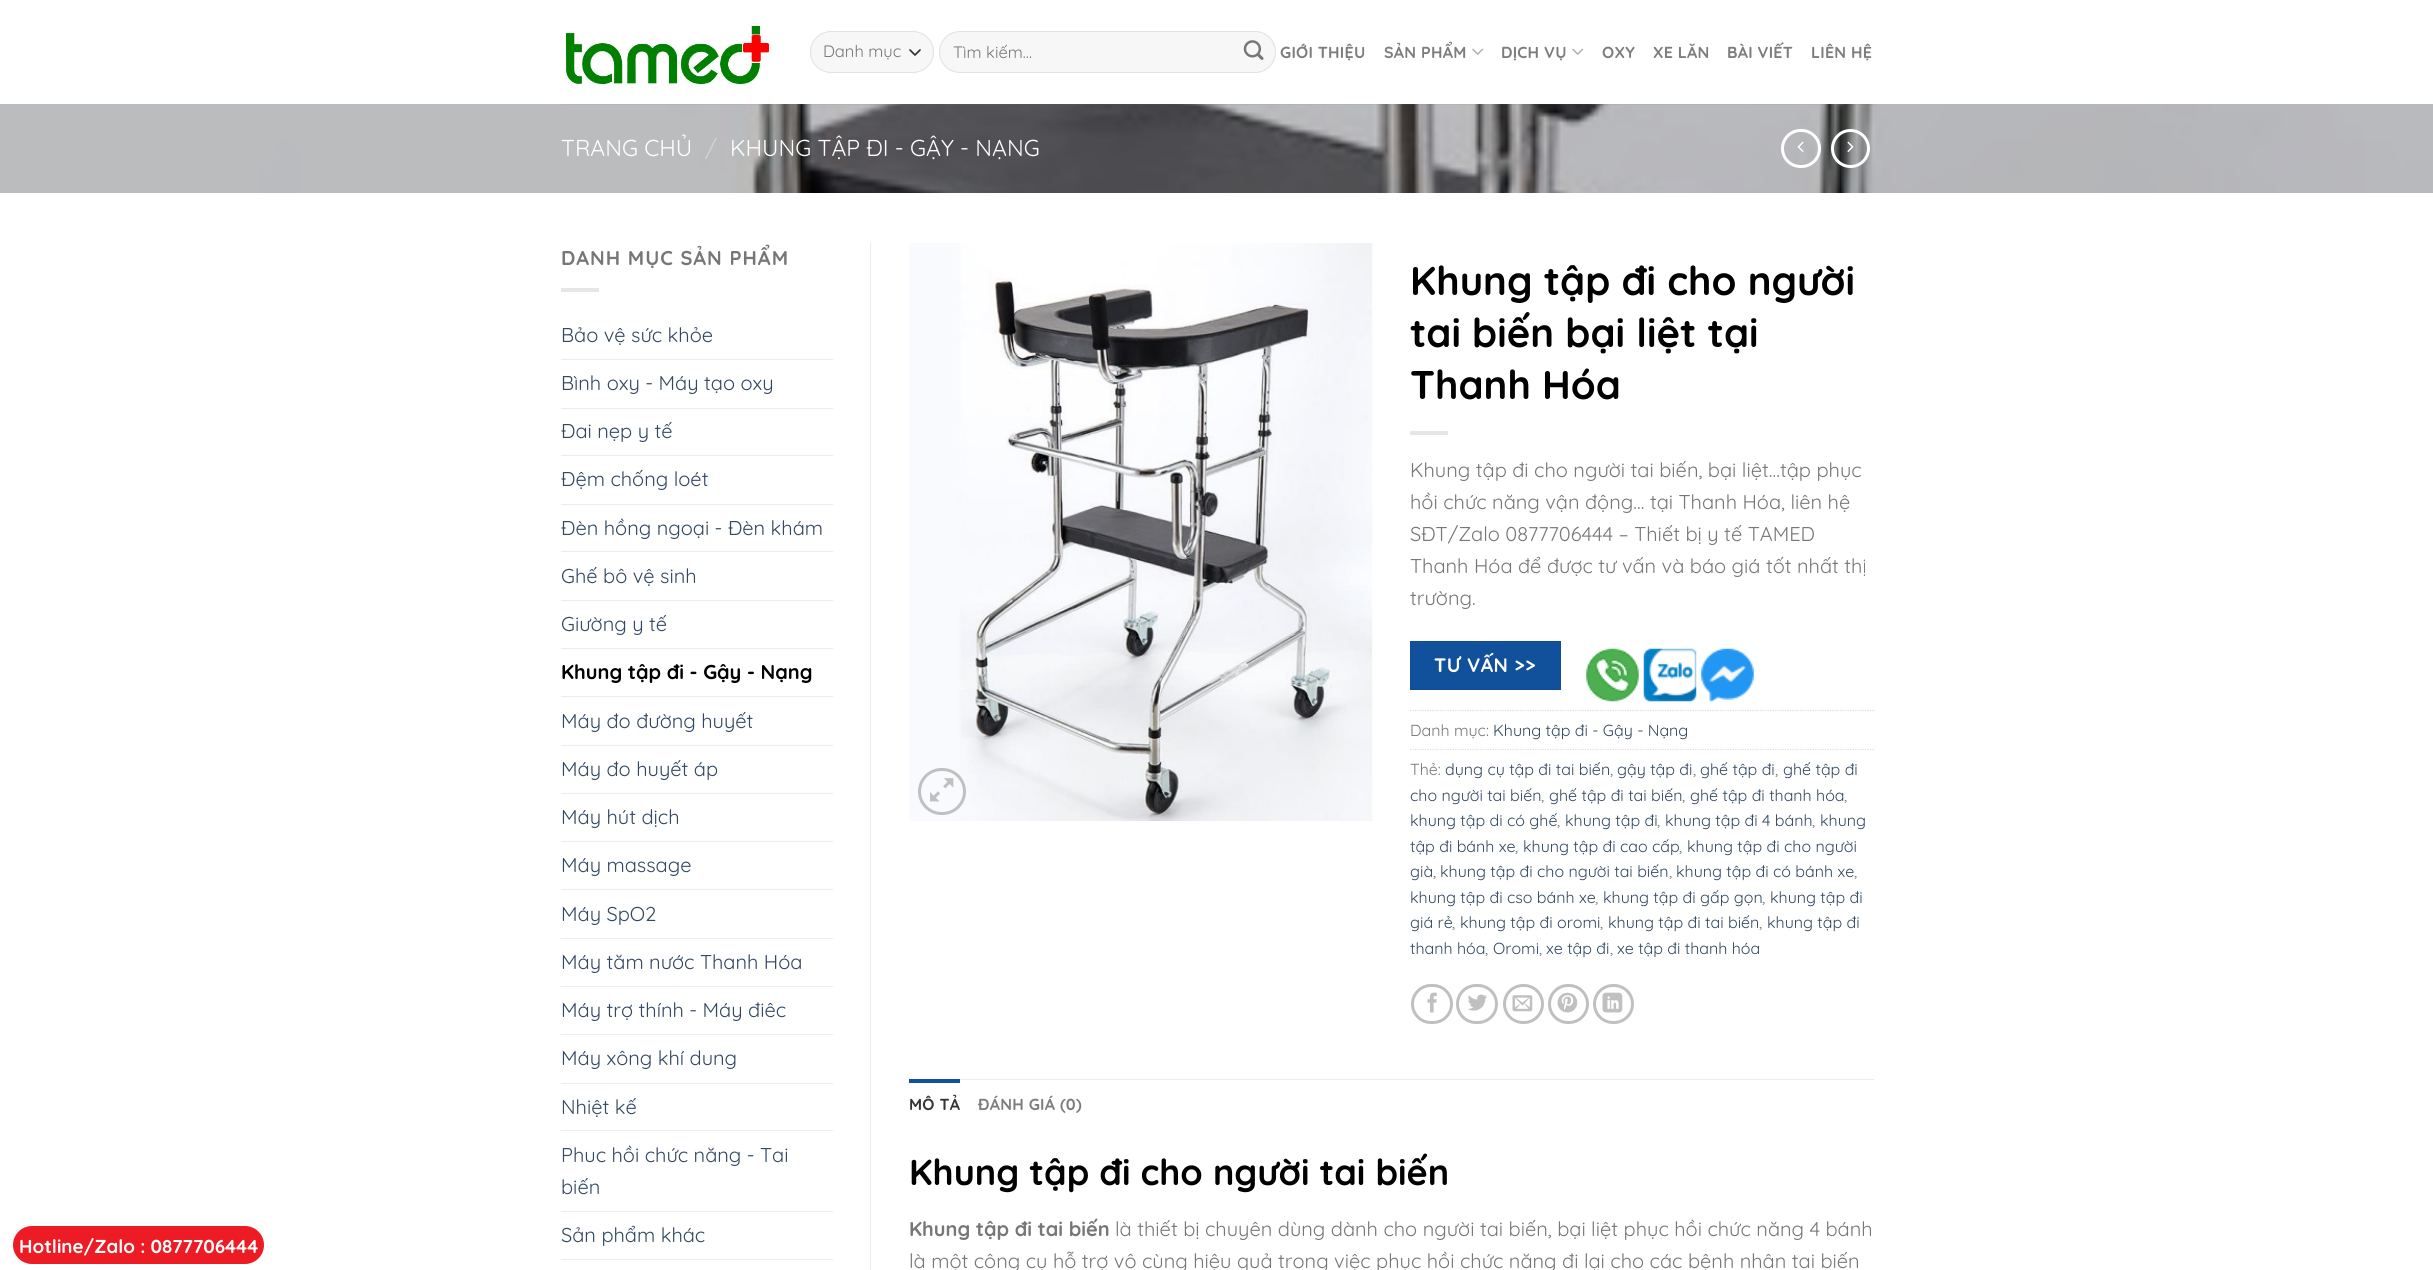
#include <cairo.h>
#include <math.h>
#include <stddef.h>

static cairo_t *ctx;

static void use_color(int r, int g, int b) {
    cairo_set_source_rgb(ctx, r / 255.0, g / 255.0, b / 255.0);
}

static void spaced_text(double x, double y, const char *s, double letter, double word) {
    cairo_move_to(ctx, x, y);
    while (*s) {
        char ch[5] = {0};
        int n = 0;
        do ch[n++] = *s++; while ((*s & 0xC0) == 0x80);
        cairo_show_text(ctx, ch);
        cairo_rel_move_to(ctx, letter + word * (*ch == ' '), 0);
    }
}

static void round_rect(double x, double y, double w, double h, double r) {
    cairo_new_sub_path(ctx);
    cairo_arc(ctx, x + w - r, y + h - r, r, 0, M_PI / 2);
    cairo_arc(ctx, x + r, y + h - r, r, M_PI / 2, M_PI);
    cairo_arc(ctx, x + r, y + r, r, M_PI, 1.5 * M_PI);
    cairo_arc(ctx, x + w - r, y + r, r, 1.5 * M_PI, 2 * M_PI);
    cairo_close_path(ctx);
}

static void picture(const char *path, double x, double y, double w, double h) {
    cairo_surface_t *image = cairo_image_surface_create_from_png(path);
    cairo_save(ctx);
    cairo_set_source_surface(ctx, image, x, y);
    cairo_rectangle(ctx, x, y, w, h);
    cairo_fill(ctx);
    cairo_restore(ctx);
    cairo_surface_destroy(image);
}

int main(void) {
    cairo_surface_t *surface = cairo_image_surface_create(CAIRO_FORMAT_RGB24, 2433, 1270);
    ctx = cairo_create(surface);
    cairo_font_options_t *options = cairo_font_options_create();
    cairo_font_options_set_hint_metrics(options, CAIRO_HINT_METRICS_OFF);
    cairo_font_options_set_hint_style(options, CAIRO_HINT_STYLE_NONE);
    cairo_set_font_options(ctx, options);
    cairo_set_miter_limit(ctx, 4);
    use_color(255, 255, 255);
    cairo_paint(ctx);
    use_color(237, 28, 36);
    round_rect(13, 1226, 251, 38, 19);
    cairo_fill(ctx);
    cairo_select_font_face(ctx, "Quicksand", CAIRO_FONT_SLANT_NORMAL, CAIRO_FONT_WEIGHT_BOLD);
    cairo_set_font_size(ctx, 18.75);
    use_color(255, 255, 255);
    cairo_move_to(ctx, 19, 1253);
    cairo_show_text(ctx, "Hotline/Zalo : 0877706444");
    picture("img4.png", 0, 103, 2433, 90);
    cairo_set_source_rgba(ctx, 1, 1, 1, 0.9);
    cairo_rectangle(ctx, 0, 103, 2433, 1);
    cairo_fill(ctx);
    picture("img1.png", 565, 23, 205, 62);
    use_color(247, 247, 247);
    round_rect(810, 31, 124, 42, 21);
    cairo_fill(ctx);
    cairo_new_path(ctx);
    cairo_move_to(ctx, 910, 50);
    cairo_line_to(ctx, 915, 55);
    cairo_line_to(ctx, 920, 50);
    use_color(51, 51, 51);
    cairo_set_line_width(ctx, 1.7);
    cairo_set_line_cap(ctx, CAIRO_LINE_CAP_ROUND);
    cairo_set_line_join(ctx, CAIRO_LINE_JOIN_ROUND);
    cairo_stroke(ctx);
    round_rect(810.5, 31.5, 123, 41, 20.5);
    cairo_set_source_rgba(ctx, 0, 0, 0, 0.09);
    cairo_set_line_width(ctx, 1);
    cairo_set_line_cap(ctx, CAIRO_LINE_CAP_BUTT);
    cairo_set_line_join(ctx, CAIRO_LINE_JOIN_MITER);
    cairo_stroke(ctx);
    cairo_select_font_face(ctx, "Quicksand", CAIRO_FONT_SLANT_NORMAL, CAIRO_FONT_WEIGHT_NORMAL);
    cairo_set_font_size(ctx, 16.5);
    use_color(119, 119, 119);
    cairo_move_to(ctx, 823, 57);
    cairo_show_text(ctx, "Danh mục");
    use_color(247, 247, 247);
    round_rect(939, 31, 337, 42, 21);
    cairo_fill(ctx);
    round_rect(939.5, 31.5, 336, 41, 20.5);
    cairo_set_source_rgba(ctx, 0, 0, 0, 0.09);
    cairo_stroke(ctx);
    use_color(119, 119, 119);
    cairo_move_to(ctx, 953, 58);
    cairo_show_text(ctx, "Tìm kiếm…");
    picture("img2.png", 1243, 40, 21, 20);
    cairo_select_font_face(ctx, "Quicksand", CAIRO_FONT_SLANT_NORMAL, CAIRO_FONT_WEIGHT_BOLD);
    cairo_set_font_size(ctx, 16);
    use_color(125, 125, 125);
    spaced_text(1280, 58, "GIỚI THIỆU", 0.25, 0);
    spaced_text(1384, 58, "SẢN PHẨM", 0.25, 0);
    picture("img3.png", 1472, 48, 12, 7);
    spaced_text(1501, 58, "DỊCH VỤ", 0.25, 0);
    picture("img3.png", 1572, 48, 12, 7);
    spaced_text(1602, 58, "OXY", 0.25, 0);
    spaced_text(1653, 58, "XE LĂN", 0.25, 0);
    spaced_text(1727, 58, "BÀI VIẾT", 0.25, 0);
    spaced_text(1811, 58, "LIÊN HỆ", 0.25, 0);
    cairo_set_source_rgba(ctx, 0.467, 0.467, 0.467, 0.1);
    cairo_rectangle(ctx, 561, 104, 1313, 1);
    cairo_fill(ctx);
    cairo_set_source_rgba(ctx, 1, 1, 1, 0.9);
    cairo_rectangle(ctx, 759, 103, 1113, 1);
    cairo_fill(ctx);
    cairo_select_font_face(ctx, "Quicksand", CAIRO_FONT_SLANT_NORMAL, CAIRO_FONT_WEIGHT_NORMAL);
    cairo_set_font_size(ctx, 23);
    use_color(255, 255, 255);
    cairo_move_to(ctx, 561, 156);
    cairo_show_text(ctx, "TRANG CHỦ");
    use_color(210, 211, 213);
    cairo_move_to(ctx, 705, 156);
    cairo_show_text(ctx, "/");
    use_color(255, 255, 255);
    cairo_move_to(ctx, 730, 156);
    cairo_show_text(ctx, "KHUNG TẬP ĐI - GẬY - NẠNG");
    round_rect(1782.5, 130.5, 37, 36, 18);
    cairo_set_line_width(ctx, 3);
    cairo_stroke(ctx);
    picture("img5.png", 1797, 141, 7, 11);
    cairo_arc(ctx, 1850.5, 148.5, 18, 0, 2 * M_PI);
    cairo_stroke(ctx);
    picture("img6.png", 1847, 141, 7, 11);
    cairo_select_font_face(ctx, "Quicksand", CAIRO_FONT_SLANT_NORMAL, CAIRO_FONT_WEIGHT_BOLD);
    cairo_set_font_size(ctx, 20);
    use_color(119, 119, 119);
    spaced_text(561, 265, "DANH MỤC SẢN PHẨM", 1, 0);
    use_color(230, 230, 230);
    cairo_rectangle(ctx, 561, 288, 38, 4);
    cairo_fill(ctx);
    cairo_select_font_face(ctx, "Quicksand", CAIRO_FONT_SLANT_NORMAL, CAIRO_FONT_WEIGHT_NORMAL);
    use_color(51, 72, 98);
    cairo_move_to(ctx, 561, 342);
    cairo_show_text(ctx, "Bảo vệ sức khỏe");
    use_color(236, 236, 236);
    cairo_rectangle(ctx, 561, 359, 272, 1);
    cairo_fill(ctx);
    use_color(51, 72, 98);
    cairo_move_to(ctx, 561, 390);
    cairo_show_text(ctx, "Bình oxy - Máy tạo oxy");
    use_color(236, 236, 236);
    cairo_rectangle(ctx, 561, 408, 272, 1);
    cairo_fill(ctx);
    use_color(51, 72, 98);
    cairo_move_to(ctx, 561, 438);
    cairo_show_text(ctx, "Đai nẹp y tế");
    use_color(236, 236, 236);
    cairo_rectangle(ctx, 561, 455, 272, 1);
    cairo_fill(ctx);
    use_color(51, 72, 98);
    cairo_move_to(ctx, 561, 486);
    cairo_show_text(ctx, "Đệm chống loét");
    use_color(236, 236, 236);
    cairo_rectangle(ctx, 561, 504, 272, 1);
    cairo_fill(ctx);
    use_color(51, 72, 98);
    cairo_move_to(ctx, 561, 535);
    cairo_show_text(ctx, "Đèn hồng ngoại - Đèn khám");
    use_color(236, 236, 236);
    cairo_rectangle(ctx, 561, 551, 272, 1);
    cairo_fill(ctx);
    use_color(51, 72, 98);
    cairo_move_to(ctx, 561, 583);
    cairo_show_text(ctx, "Ghế bô vệ sinh");
    use_color(236, 236, 236);
    cairo_rectangle(ctx, 561, 600, 272, 1);
    cairo_fill(ctx);
    use_color(51, 72, 98);
    cairo_move_to(ctx, 561, 631);
    cairo_show_text(ctx, "Giường y tế");
    use_color(236, 236, 236);
    cairo_rectangle(ctx, 561, 648, 272, 1);
    cairo_fill(ctx);
    cairo_select_font_face(ctx, "Quicksand", CAIRO_FONT_SLANT_NORMAL, CAIRO_FONT_WEIGHT_BOLD);
    use_color(0, 0, 0);
    cairo_move_to(ctx, 561, 679);
    cairo_show_text(ctx, "Khung tập đi - Gậy - Nạng");
    use_color(236, 236, 236);
    cairo_rectangle(ctx, 561, 696, 272, 1);
    cairo_fill(ctx);
    cairo_select_font_face(ctx, "Quicksand", CAIRO_FONT_SLANT_NORMAL, CAIRO_FONT_WEIGHT_NORMAL);
    use_color(51, 72, 98);
    cairo_move_to(ctx, 561, 728);
    cairo_show_text(ctx, "Máy đo đường huyết");
    use_color(236, 236, 236);
    cairo_rectangle(ctx, 561, 745, 272, 1);
    cairo_fill(ctx);
    use_color(51, 72, 98);
    cairo_move_to(ctx, 561, 776);
    cairo_show_text(ctx, "Máy đo huyết áp");
    use_color(236, 236, 236);
    cairo_rectangle(ctx, 561, 793, 272, 1);
    cairo_fill(ctx);
    use_color(51, 72, 98);
    cairo_move_to(ctx, 561, 824);
    cairo_show_text(ctx, "Máy hút dịch");
    use_color(236, 236, 236);
    cairo_rectangle(ctx, 561, 841, 272, 1);
    cairo_fill(ctx);
    use_color(51, 72, 98);
    cairo_move_to(ctx, 561, 872);
    cairo_show_text(ctx, "Máy massage");
    use_color(236, 236, 236);
    cairo_rectangle(ctx, 561, 889, 272, 1);
    cairo_fill(ctx);
    use_color(51, 72, 98);
    cairo_move_to(ctx, 561, 921);
    cairo_show_text(ctx, "Máy SpO2");
    use_color(236, 236, 236);
    cairo_rectangle(ctx, 561, 938, 272, 1);
    cairo_fill(ctx);
    use_color(51, 72, 98);
    cairo_move_to(ctx, 561, 969);
    cairo_show_text(ctx, "Máy tăm nước Thanh Hóa");
    use_color(236, 236, 236);
    cairo_rectangle(ctx, 561, 986, 272, 1);
    cairo_fill(ctx);
    use_color(51, 72, 98);
    cairo_move_to(ctx, 561, 1017);
    cairo_show_text(ctx, "Máy trợ thính - Máy điêc");
    use_color(236, 236, 236);
    cairo_rectangle(ctx, 561, 1034, 272, 1);
    cairo_fill(ctx);
    use_color(51, 72, 98);
    cairo_move_to(ctx, 561, 1065);
    cairo_show_text(ctx, "Máy xông khí dung");
    use_color(236, 236, 236);
    cairo_rectangle(ctx, 561, 1083, 272, 1);
    cairo_fill(ctx);
    use_color(51, 72, 98);
    cairo_move_to(ctx, 561, 1114);
    cairo_show_text(ctx, "Nhiệt kế");
    use_color(236, 236, 236);
    cairo_rectangle(ctx, 561, 1130, 272, 1);
    cairo_fill(ctx);
    use_color(51, 72, 98);
    cairo_move_to(ctx, 561, 1162);
    cairo_show_text(ctx, "Phuc hồi chức năng - Tai");
    cairo_move_to(ctx, 561, 1194);
    cairo_show_text(ctx, "biến");
    use_color(236, 236, 236);
    cairo_rectangle(ctx, 561, 1211, 272, 1);
    cairo_fill(ctx);
    use_color(51, 72, 98);
    cairo_move_to(ctx, 561, 1242);
    cairo_show_text(ctx, "Sản phẩm khác");
    use_color(236, 236, 236);
    cairo_rectangle(ctx, 561, 1259, 272, 1);
    cairo_fill(ctx);
    cairo_rectangle(ctx, 870, 243, 1, 1027);
    cairo_fill(ctx);
    picture("img7.png", 909, 243, 464, 578);
    round_rect(919.5, 769.5, 45, 44, 22);
    use_color(192, 192, 192);
    cairo_stroke(ctx);
    picture("img8.png", 930, 778, 24, 24);
    cairo_select_font_face(ctx, "Quicksand", CAIRO_FONT_SLANT_NORMAL, CAIRO_FONT_WEIGHT_BOLD);
    cairo_set_font_size(ctx, 40);
    use_color(0, 0, 0);
    cairo_move_to(ctx, 1410, 295);
    cairo_show_text(ctx, "Khung tập đi cho người");
    cairo_move_to(ctx, 1410, 347);
    cairo_show_text(ctx, "tai biến bại liệt tại");
    cairo_move_to(ctx, 1410, 399);
    cairo_show_text(ctx, "Thanh Hóa");
    use_color(230, 230, 230);
    cairo_rectangle(ctx, 1410, 431, 38, 4);
    cairo_fill(ctx);
    cairo_select_font_face(ctx, "Quicksand", CAIRO_FONT_SLANT_NORMAL, CAIRO_FONT_WEIGHT_NORMAL);
    cairo_set_font_size(ctx, 20);
    use_color(119, 119, 119);
    cairo_move_to(ctx, 1410, 477);
    cairo_show_text(ctx, "Khung tập đi cho người tai biến, bại liệt…tập phục");
    cairo_move_to(ctx, 1410, 509);
    cairo_show_text(ctx, "hồi chức năng vận động… tại Thanh Hóa, liên hệ");
    cairo_move_to(ctx, 1410, 541);
    cairo_show_text(ctx, "SĐT/Zalo 0877706444 – Thiết bị y tế TAMED");
    cairo_move_to(ctx, 1410, 573);
    cairo_show_text(ctx, "Thanh Hóa để được tư vấn và báo giá tốt nhất thị");
    cairo_move_to(ctx, 1410, 605);
    cairo_show_text(ctx, "trường.");
    use_color(17, 81, 155);
    cairo_rectangle(ctx, 1410.5, 641.5, 150, 48);
    cairo_fill_preserve(ctx);
    use_color(16, 77, 147);
    cairo_set_line_width(ctx, 1);
    cairo_stroke(ctx);
    cairo_select_font_face(ctx, "Quicksand", CAIRO_FONT_SLANT_NORMAL, CAIRO_FONT_WEIGHT_BOLD);
    cairo_set_font_size(ctx, 19.5);
    use_color(255, 255, 255);
    spaced_text(1434, 672, "TƯ VẤN >>", 0.5, 0);
    picture("img9.png", 1586, 648, 53, 54);
    picture("img10.png", 1643, 648, 54, 54);
    picture("img11.png", 1701, 648, 53, 54);
    cairo_new_path(ctx);
    cairo_move_to(ctx, 1410, 710.5);
    cairo_line_to(ctx, 1874, 710.5);
    use_color(221, 221, 221);
    cairo_set_line_width(ctx, 1.2);
    cairo_set_dash(ctx, (double[]){1.25, 1.25}, 2, 0);
    cairo_stroke(ctx);
    cairo_select_font_face(ctx, "Quicksand", CAIRO_FONT_SLANT_NORMAL, CAIRO_FONT_WEIGHT_NORMAL);
    cairo_set_font_size(ctx, 16);
    use_color(119, 119, 119);
    cairo_move_to(ctx, 1410, 736);
    cairo_show_text(ctx, "Danh mục:");
    use_color(51, 72, 98);
    cairo_move_to(ctx, 1493, 736);
    cairo_show_text(ctx, "Khung tập đi - Gậy - Nạng");
    cairo_new_path(ctx);
    cairo_move_to(ctx, 1410, 749.5);
    cairo_line_to(ctx, 1874, 749.5);
    use_color(221, 221, 221);
    cairo_stroke(ctx);
    use_color(119, 119, 119);
    cairo_move_to(ctx, 1410, 775);
    cairo_show_text(ctx, "Thẻ:");
    use_color(51, 72, 98);
    cairo_move_to(ctx, 1445, 775);
    cairo_show_text(ctx, "dụng cụ tập đi tai biến");
    use_color(119, 119, 119);
    cairo_move_to(ctx, 1610, 775);
    cairo_show_text(ctx, ",");
    use_color(51, 72, 98);
    cairo_move_to(ctx, 1617, 775);
    cairo_show_text(ctx, "gậy tập đi");
    use_color(119, 119, 119);
    cairo_move_to(ctx, 1693, 775);
    cairo_show_text(ctx, ",");
    use_color(51, 72, 98);
    cairo_move_to(ctx, 1700, 775);
    cairo_show_text(ctx, "ghế tập đi");
    use_color(119, 119, 119);
    cairo_move_to(ctx, 1775, 775);
    cairo_show_text(ctx, ",");
    use_color(51, 72, 98);
    cairo_move_to(ctx, 1783, 775);
    cairo_show_text(ctx, "ghế tập đi");
    cairo_move_to(ctx, 1410, 801);
    cairo_show_text(ctx, "cho người tai biến");
    use_color(119, 119, 119);
    cairo_move_to(ctx, 1541, 801);
    cairo_show_text(ctx, ",");
    use_color(51, 72, 98);
    cairo_move_to(ctx, 1549, 801);
    cairo_show_text(ctx, "ghế tập đi tai biến");
    use_color(119, 119, 119);
    cairo_move_to(ctx, 1682, 801);
    cairo_show_text(ctx, ",");
    use_color(51, 72, 98);
    cairo_move_to(ctx, 1690, 801);
    cairo_show_text(ctx, "ghế tập đi thanh hóa");
    use_color(119, 119, 119);
    cairo_move_to(ctx, 1844, 801);
    cairo_show_text(ctx, ",");
    use_color(51, 72, 98);
    cairo_move_to(ctx, 1410, 826);
    cairo_show_text(ctx, "khung tập di có ghế");
    use_color(119, 119, 119);
    cairo_move_to(ctx, 1557, 826);
    cairo_show_text(ctx, ",");
    use_color(51, 72, 98);
    cairo_move_to(ctx, 1565, 826);
    cairo_show_text(ctx, "khung tập đi");
    use_color(119, 119, 119);
    cairo_move_to(ctx, 1657, 826);
    cairo_show_text(ctx, ",");
    use_color(51, 72, 98);
    cairo_move_to(ctx, 1665, 826);
    cairo_show_text(ctx, "khung tập đi 4 bánh");
    use_color(119, 119, 119);
    cairo_move_to(ctx, 1812, 826);
    cairo_show_text(ctx, ",");
    use_color(51, 72, 98);
    cairo_move_to(ctx, 1820, 826);
    cairo_show_text(ctx, "khung");
    cairo_move_to(ctx, 1410, 852);
    cairo_show_text(ctx, "tập đi bánh xe");
    use_color(119, 119, 119);
    cairo_move_to(ctx, 1515, 852);
    cairo_show_text(ctx, ",");
    use_color(51, 72, 98);
    cairo_move_to(ctx, 1523, 852);
    cairo_show_text(ctx, "khung tập đi cao cấp");
    use_color(119, 119, 119);
    cairo_move_to(ctx, 1679, 852);
    cairo_show_text(ctx, ",");
    use_color(51, 72, 98);
    cairo_move_to(ctx, 1687, 852);
    cairo_show_text(ctx, "khung tập đi cho người");
    cairo_move_to(ctx, 1410, 877);
    cairo_show_text(ctx, "già");
    use_color(119, 119, 119);
    cairo_move_to(ctx, 1433, 877);
    cairo_show_text(ctx, ",");
    use_color(51, 72, 98);
    cairo_move_to(ctx, 1440, 877);
    cairo_show_text(ctx, "khung tập đi cho người tai biến");
    use_color(119, 119, 119);
    cairo_move_to(ctx, 1669, 877);
    cairo_show_text(ctx, ",");
    use_color(51, 72, 98);
    cairo_move_to(ctx, 1676, 877);
    cairo_show_text(ctx, "khung tập đi có bánh xe");
    use_color(119, 119, 119);
    cairo_move_to(ctx, 1854, 877);
    cairo_show_text(ctx, ",");
    use_color(51, 72, 98);
    cairo_move_to(ctx, 1410, 903);
    cairo_show_text(ctx, "khung tập đi cso bánh xe");
    use_color(119, 119, 119);
    cairo_move_to(ctx, 1595, 903);
    cairo_show_text(ctx, ",");
    use_color(51, 72, 98);
    cairo_move_to(ctx, 1603, 903);
    cairo_show_text(ctx, "khung tập đi gấp gọn");
    use_color(119, 119, 119);
    cairo_move_to(ctx, 1762, 903);
    cairo_show_text(ctx, ",");
    use_color(51, 72, 98);
    cairo_move_to(ctx, 1770, 903);
    cairo_show_text(ctx, "khung tập đi");
    cairo_move_to(ctx, 1410, 928);
    cairo_show_text(ctx, "giá rẻ");
    use_color(119, 119, 119);
    cairo_move_to(ctx, 1452, 928);
    cairo_show_text(ctx, ",");
    use_color(51, 72, 98);
    cairo_move_to(ctx, 1460, 928);
    cairo_show_text(ctx, "khung tập đi oromi");
    use_color(119, 119, 119);
    cairo_move_to(ctx, 1600, 928);
    cairo_show_text(ctx, ",");
    use_color(51, 72, 98);
    cairo_move_to(ctx, 1608, 928);
    cairo_show_text(ctx, "khung tập đi tai biến");
    use_color(119, 119, 119);
    cairo_move_to(ctx, 1759, 928);
    cairo_show_text(ctx, ",");
    use_color(51, 72, 98);
    cairo_move_to(ctx, 1767, 928);
    cairo_show_text(ctx, "khung tập đi");
    cairo_move_to(ctx, 1410, 954);
    cairo_show_text(ctx, "thanh hóa");
    use_color(119, 119, 119);
    cairo_move_to(ctx, 1485, 954);
    cairo_show_text(ctx, ",");
    use_color(51, 72, 98);
    cairo_move_to(ctx, 1493, 954);
    cairo_show_text(ctx, "Oromi");
    use_color(119, 119, 119);
    cairo_move_to(ctx, 1539, 954);
    cairo_show_text(ctx, ",");
    use_color(51, 72, 98);
    cairo_move_to(ctx, 1546, 954);
    cairo_show_text(ctx, "xe tập đi");
    use_color(119, 119, 119);
    cairo_move_to(ctx, 1610, 954);
    cairo_show_text(ctx, ",");
    use_color(51, 72, 98);
    cairo_move_to(ctx, 1617, 954);
    cairo_show_text(ctx, "xe tập đi thanh hóa");
    round_rect(1412.5, 985.5, 39, 37, 18.5);
    use_color(192, 192, 192);
    cairo_set_line_width(ctx, 3);
    cairo_set_dash(ctx, NULL, 0, 0);
    cairo_stroke(ctx);
    picture("img12.png", 1427, 992, 10, 21);
    round_rect(1457.5, 985.5, 39, 37, 18.5);
    cairo_stroke(ctx);
    picture("img13.png", 1468, 994, 19, 17);
    round_rect(1504.5, 985.5, 38, 37, 18.5);
    cairo_stroke(ctx);
    picture("img14.png", 1512, 995, 21, 17);
    round_rect(1549.5, 985.5, 38, 37, 18.5);
    cairo_stroke(ctx);
    picture("img15.png", 1557, 992, 21, 21);
    round_rect(1594.5, 985.5, 38, 37, 18.5);
    cairo_stroke(ctx);
    picture("img16.png", 1602, 992, 21, 21);
    use_color(236, 236, 236);
    cairo_rectangle(ctx, 960, 1079, 914, 1);
    cairo_fill(ctx);
    use_color(17, 81, 155);
    cairo_rectangle(ctx, 909, 1079, 51, 4);
    cairo_fill(ctx);
    cairo_select_font_face(ctx, "Quicksand", CAIRO_FONT_SLANT_NORMAL, CAIRO_FONT_WEIGHT_BOLD);
    use_color(53, 53, 53);
    spaced_text(909, 1110, "MÔ TẢ", 0.25, 0);
    use_color(125, 125, 125);
    spaced_text(978, 1110, "ĐÁNH GIÁ (0)", 0.25, 0);
    cairo_set_font_size(ctx, 36);
    use_color(0, 0, 0);
    cairo_move_to(ctx, 909, 1185);
    cairo_show_text(ctx, "Khung tập đi cho người tai biến");
    cairo_set_font_size(ctx, 20);
    use_color(119, 119, 119);
    cairo_move_to(ctx, 909, 1236);
    cairo_show_text(ctx, "Khung tập đi tai biến");
    cairo_select_font_face(ctx, "Quicksand", CAIRO_FONT_SLANT_NORMAL, CAIRO_FONT_WEIGHT_NORMAL);
    cairo_move_to(ctx, 1115, 1236);
    cairo_show_text(ctx, "là thiết bị chuyên dùng dành cho người tai biến, bại liệt phục hồi chức năng 4 bánh");
    cairo_move_to(ctx, 909, 1268);
    cairo_show_text(ctx, "là một công cụ hỗ trợ vô cùng hiệu quả trong việc phục hồi chức năng đi lại cho các bệnh nhân tai biến");
    cairo_surface_write_to_png(surface, "result.png");
    cairo_font_options_destroy(options);
    cairo_destroy(ctx);
    cairo_surface_destroy(surface);
    return 0;
}
